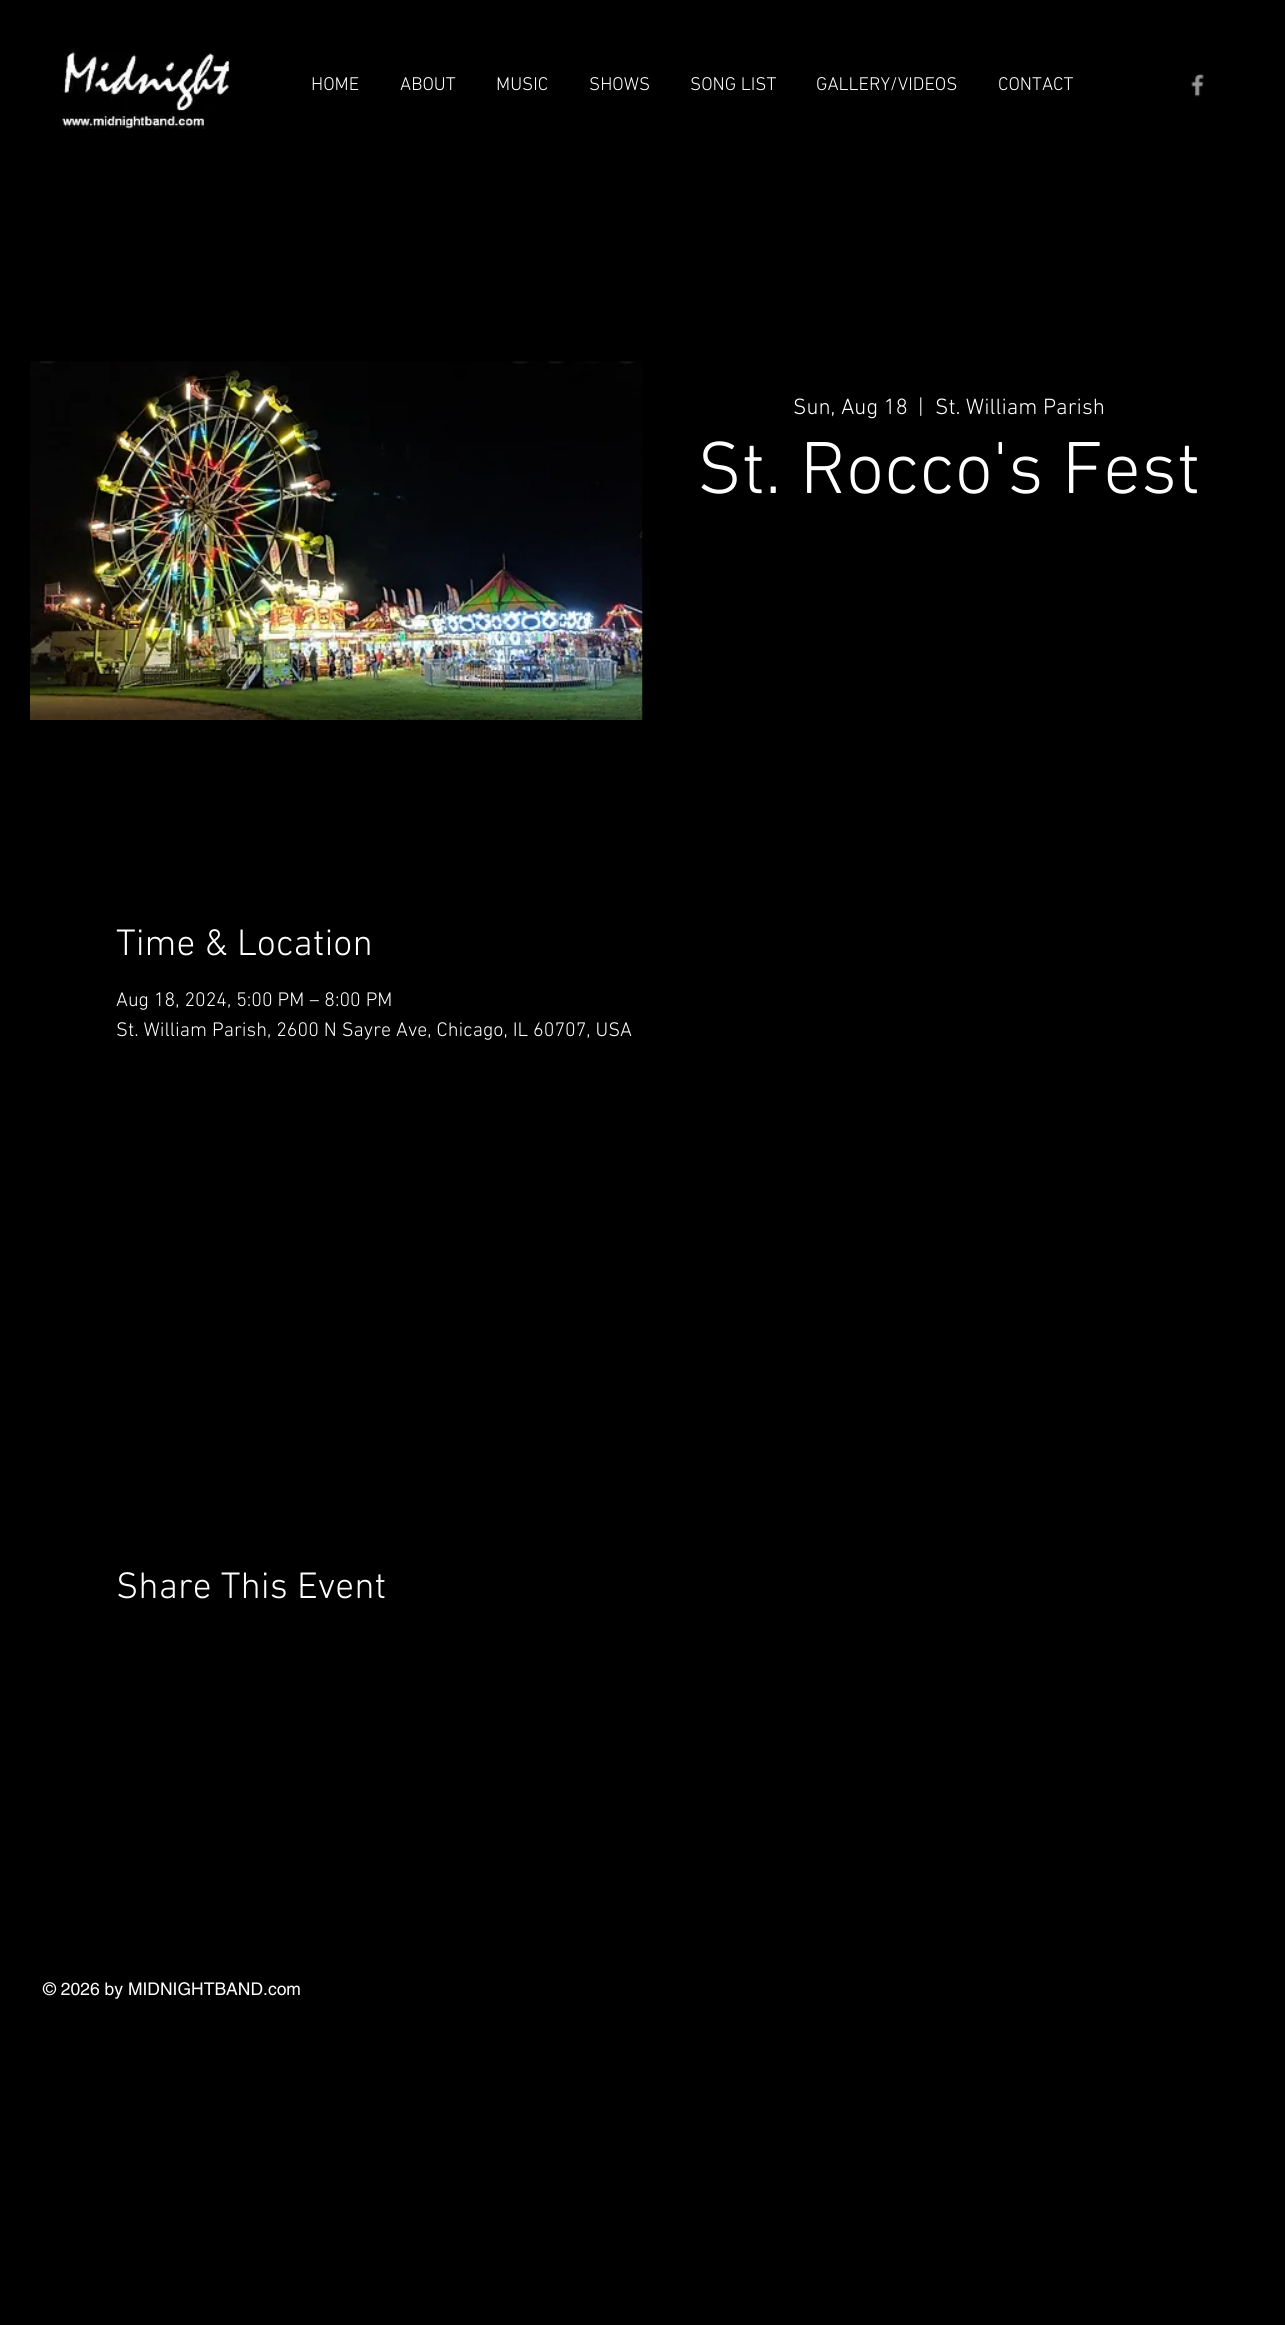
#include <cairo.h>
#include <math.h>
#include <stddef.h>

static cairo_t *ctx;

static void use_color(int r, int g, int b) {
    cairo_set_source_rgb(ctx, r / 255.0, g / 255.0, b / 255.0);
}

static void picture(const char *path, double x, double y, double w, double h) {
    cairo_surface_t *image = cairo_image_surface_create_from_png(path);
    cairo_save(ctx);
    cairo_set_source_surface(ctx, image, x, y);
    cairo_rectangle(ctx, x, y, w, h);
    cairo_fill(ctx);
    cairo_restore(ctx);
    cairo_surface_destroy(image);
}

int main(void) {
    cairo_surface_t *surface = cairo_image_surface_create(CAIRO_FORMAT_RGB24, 1285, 2325);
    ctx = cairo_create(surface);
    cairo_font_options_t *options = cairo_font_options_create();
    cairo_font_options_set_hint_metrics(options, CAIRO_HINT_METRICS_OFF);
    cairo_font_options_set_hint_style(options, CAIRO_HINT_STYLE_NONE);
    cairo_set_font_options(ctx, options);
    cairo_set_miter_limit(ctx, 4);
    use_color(0, 0, 0);
    cairo_paint(ctx);
    picture("img1.png", 60, 49, 170, 80);
    cairo_select_font_face(ctx, "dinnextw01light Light", CAIRO_FONT_SLANT_NORMAL, CAIRO_FONT_WEIGHT_NORMAL);
    cairo_set_font_size(ctx, 18.75);
    use_color(255, 255, 255);
    cairo_move_to(ctx, 311, 90);
    cairo_show_text(ctx, "HOME");
    cairo_move_to(ctx, 400, 90);
    cairo_show_text(ctx, "ABOUT");
    cairo_move_to(ctx, 496, 90);
    cairo_show_text(ctx, "MUSIC");
    cairo_move_to(ctx, 589, 90);
    cairo_show_text(ctx, "SHOWS");
    cairo_move_to(ctx, 690, 90);
    cairo_show_text(ctx, "SONG LIST");
    cairo_move_to(ctx, 816, 90);
    cairo_show_text(ctx, "GALLERY/VIDEOS");
    cairo_move_to(ctx, 998, 90);
    cairo_show_text(ctx, "CONTACT");
    picture("img2.png", 1191, 73, 13, 24);
    picture("img3.png", 30, 361, 613, 359);
    cairo_set_font_size(ctx, 22.5);
    cairo_move_to(ctx, 793, 414);
    cairo_show_text(ctx, "Sun, Aug 18");
    cairo_move_to(ctx, 918, 414);
    cairo_show_text(ctx, "|");
    cairo_move_to(ctx, 935, 414);
    cairo_show_text(ctx, "St. William Parish");
    cairo_set_font_size(ctx, 75);
    cairo_move_to(ctx, 697, 493);
    cairo_show_text(ctx, "St. Rocco's Fest");
    cairo_set_font_size(ctx, 37.5);
    cairo_move_to(ctx, 116, 955);
    cairo_show_text(ctx, "Time & Location");
    cairo_set_font_size(ctx, 20);
    cairo_move_to(ctx, 116, 1006);
    cairo_show_text(ctx, "Aug 18, 2024, 5:00 PM – 8:00 PM");
    cairo_move_to(ctx, 116, 1036);
    cairo_show_text(ctx, "St. William Parish, 2600 N Sayre Ave, Chicago, IL 60707, USA");
    cairo_set_font_size(ctx, 37.5);
    cairo_move_to(ctx, 116, 1598);
    cairo_show_text(ctx, "Share This Event");
    cairo_select_font_face(ctx, "helvetica", CAIRO_FONT_SLANT_NORMAL, CAIRO_FONT_WEIGHT_NORMAL);
    cairo_set_font_size(ctx, 17.5);
    cairo_move_to(ctx, 43, 1995);
    cairo_show_text(ctx, "© 2026 by MIDNIGHTBAND.com");
    cairo_surface_write_to_png(surface, "result.png");
    cairo_font_options_destroy(options);
    cairo_destroy(ctx);
    cairo_surface_destroy(surface);
    return 0;
}
